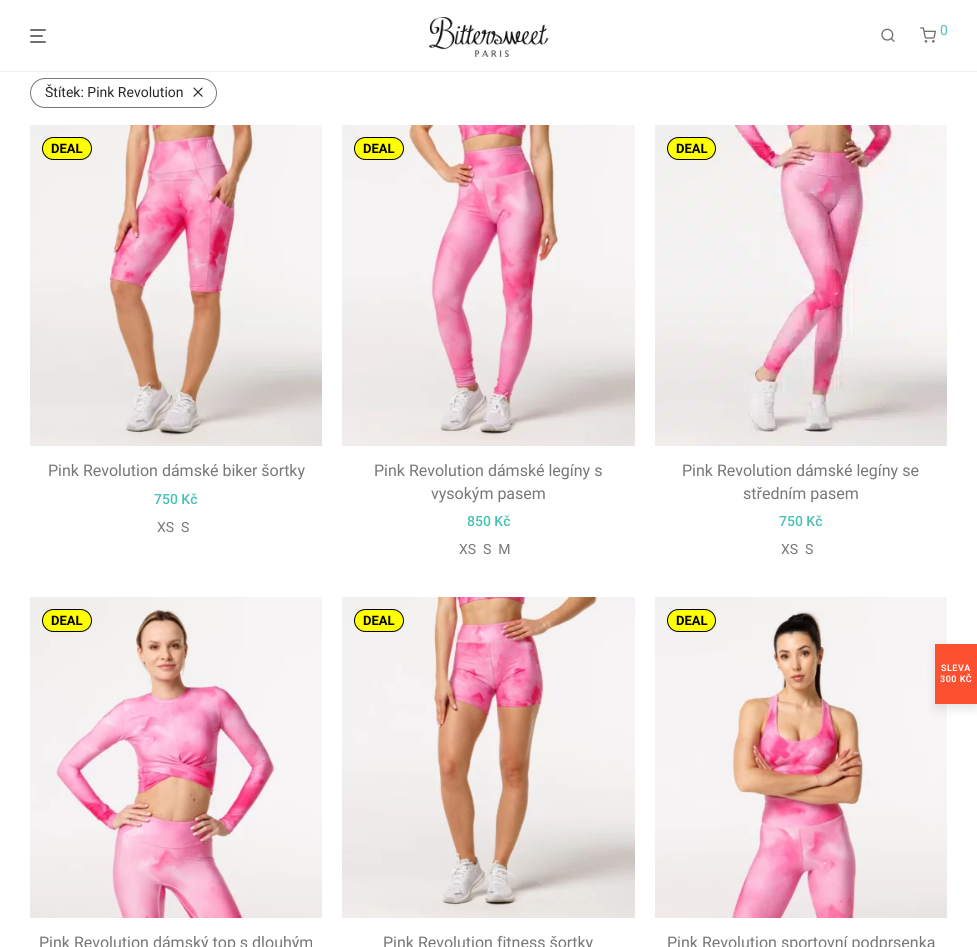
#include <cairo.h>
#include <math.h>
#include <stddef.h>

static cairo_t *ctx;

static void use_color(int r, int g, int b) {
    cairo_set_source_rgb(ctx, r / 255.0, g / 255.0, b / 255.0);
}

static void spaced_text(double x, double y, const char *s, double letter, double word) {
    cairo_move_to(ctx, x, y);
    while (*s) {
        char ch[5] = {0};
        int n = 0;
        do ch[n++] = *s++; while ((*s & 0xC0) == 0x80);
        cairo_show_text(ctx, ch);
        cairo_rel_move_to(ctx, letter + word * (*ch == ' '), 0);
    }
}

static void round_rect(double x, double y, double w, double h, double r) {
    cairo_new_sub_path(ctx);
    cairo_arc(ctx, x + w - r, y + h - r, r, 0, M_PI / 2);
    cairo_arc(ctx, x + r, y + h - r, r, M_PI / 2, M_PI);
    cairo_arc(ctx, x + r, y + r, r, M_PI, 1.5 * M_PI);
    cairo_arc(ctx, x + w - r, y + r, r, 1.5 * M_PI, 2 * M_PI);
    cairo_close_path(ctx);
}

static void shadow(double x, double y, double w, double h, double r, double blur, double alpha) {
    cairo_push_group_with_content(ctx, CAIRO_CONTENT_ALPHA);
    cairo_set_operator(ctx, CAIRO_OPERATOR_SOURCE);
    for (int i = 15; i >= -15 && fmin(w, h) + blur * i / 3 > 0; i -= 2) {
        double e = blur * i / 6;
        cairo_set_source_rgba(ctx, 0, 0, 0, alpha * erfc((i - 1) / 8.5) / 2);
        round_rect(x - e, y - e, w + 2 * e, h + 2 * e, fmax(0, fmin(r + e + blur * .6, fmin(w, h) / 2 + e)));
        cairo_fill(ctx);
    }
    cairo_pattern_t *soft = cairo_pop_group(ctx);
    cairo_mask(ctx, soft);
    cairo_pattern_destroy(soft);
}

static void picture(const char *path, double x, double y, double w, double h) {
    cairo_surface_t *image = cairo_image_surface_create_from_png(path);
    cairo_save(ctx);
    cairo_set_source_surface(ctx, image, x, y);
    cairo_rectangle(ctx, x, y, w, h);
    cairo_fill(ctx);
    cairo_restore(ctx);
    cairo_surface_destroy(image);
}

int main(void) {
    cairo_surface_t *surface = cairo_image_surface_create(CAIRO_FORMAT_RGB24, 977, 947);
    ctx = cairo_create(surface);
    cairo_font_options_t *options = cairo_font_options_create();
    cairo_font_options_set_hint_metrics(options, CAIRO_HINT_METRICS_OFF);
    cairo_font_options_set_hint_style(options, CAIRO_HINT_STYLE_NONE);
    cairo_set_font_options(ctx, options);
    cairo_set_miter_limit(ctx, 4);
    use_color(255, 255, 255);
    cairo_paint(ctx);
    use_color(238, 238, 238);
    cairo_rectangle(ctx, 0, 71, 977, 1);
    cairo_fill(ctx);
    use_color(112, 112, 112);
    round_rect(30, 29, 16, 2, 1);
    cairo_fill(ctx);
    round_rect(30, 35, 13, 2, 1);
    cairo_fill(ctx);
    round_rect(30, 41, 16, 2, 1);
    cairo_fill(ctx);
    picture("img1.png", 429, 17, 120, 40);
    picture("img2.png", 881, 28, 14, 14);
    picture("img3.png", 920, 27, 16, 16);
    cairo_select_font_face(ctx, "Roboto", CAIRO_FONT_SLANT_NORMAL, CAIRO_FONT_WEIGHT_NORMAL);
    cairo_set_font_size(ctx, 14);
    use_color(72, 192, 180);
    cairo_move_to(ctx, 940, 35);
    cairo_show_text(ctx, "0");
    round_rect(30.5, 78.5, 186, 29, 14.5);
    use_color(119, 119, 119);
    cairo_set_line_width(ctx, 1);
    cairo_stroke(ctx);
    use_color(40, 40, 40);
    cairo_move_to(ctx, 45, 97);
    cairo_show_text(ctx, "Štítek: Pink Revolution");
    picture("img4.png", 193, 87, 10, 10);
    picture("img5.png", 30, 125, 292, 321);
    use_color(255, 255, 3);
    round_rect(42.5, 137.5, 49, 22, 11);
    cairo_fill_preserve(ctx);
    use_color(0, 0, 0);
    cairo_stroke(ctx);
    cairo_select_font_face(ctx, "Roboto", CAIRO_FONT_SLANT_NORMAL, CAIRO_FONT_WEIGHT_BOLD);
    cairo_set_font_size(ctx, 13);
    cairo_move_to(ctx, 51, 153);
    cairo_show_text(ctx, "DEAL");
    cairo_select_font_face(ctx, "Roboto", CAIRO_FONT_SLANT_NORMAL, CAIRO_FONT_WEIGHT_NORMAL);
    cairo_set_font_size(ctx, 16);
    use_color(119, 119, 119);
    cairo_move_to(ctx, 48, 476);
    cairo_show_text(ctx, "Pink Revolution dámské biker šortky");
    cairo_select_font_face(ctx, "Roboto Medium", CAIRO_FONT_SLANT_NORMAL, CAIRO_FONT_WEIGHT_NORMAL);
    cairo_set_font_size(ctx, 14);
    use_color(72, 192, 180);
    cairo_move_to(ctx, 154, 504);
    cairo_show_text(ctx, "750 Kč");
    cairo_select_font_face(ctx, "Roboto", CAIRO_FONT_SLANT_NORMAL, CAIRO_FONT_WEIGHT_NORMAL);
    use_color(119, 119, 119);
    cairo_move_to(ctx, 157, 532);
    cairo_show_text(ctx, "XS  S");
    picture("img6.png", 342, 125, 293, 321);
    use_color(255, 255, 3);
    round_rect(354.5, 137.5, 49, 22, 11);
    cairo_fill_preserve(ctx);
    use_color(0, 0, 0);
    cairo_stroke(ctx);
    cairo_select_font_face(ctx, "Roboto", CAIRO_FONT_SLANT_NORMAL, CAIRO_FONT_WEIGHT_BOLD);
    cairo_set_font_size(ctx, 13);
    cairo_move_to(ctx, 363, 153);
    cairo_show_text(ctx, "DEAL");
    cairo_select_font_face(ctx, "Roboto", CAIRO_FONT_SLANT_NORMAL, CAIRO_FONT_WEIGHT_NORMAL);
    cairo_set_font_size(ctx, 16);
    use_color(119, 119, 119);
    cairo_move_to(ctx, 374, 476);
    cairo_show_text(ctx, "Pink Revolution dámské legíny s");
    cairo_move_to(ctx, 431, 499);
    cairo_show_text(ctx, "vysokým pasem");
    cairo_select_font_face(ctx, "Roboto Medium", CAIRO_FONT_SLANT_NORMAL, CAIRO_FONT_WEIGHT_NORMAL);
    cairo_set_font_size(ctx, 14);
    use_color(72, 192, 180);
    cairo_move_to(ctx, 467, 526);
    cairo_show_text(ctx, "850 Kč");
    cairo_select_font_face(ctx, "Roboto", CAIRO_FONT_SLANT_NORMAL, CAIRO_FONT_WEIGHT_NORMAL);
    use_color(119, 119, 119);
    cairo_move_to(ctx, 459, 554);
    cairo_show_text(ctx, "XS  S  M");
    picture("img7.png", 655, 125, 292, 321);
    use_color(255, 255, 3);
    round_rect(667.5, 137.5, 48, 22, 11);
    cairo_fill_preserve(ctx);
    use_color(0, 0, 0);
    cairo_stroke(ctx);
    cairo_select_font_face(ctx, "Roboto", CAIRO_FONT_SLANT_NORMAL, CAIRO_FONT_WEIGHT_BOLD);
    cairo_set_font_size(ctx, 13);
    cairo_move_to(ctx, 676, 153);
    cairo_show_text(ctx, "DEAL");
    cairo_select_font_face(ctx, "Roboto", CAIRO_FONT_SLANT_NORMAL, CAIRO_FONT_WEIGHT_NORMAL);
    cairo_set_font_size(ctx, 16);
    use_color(119, 119, 119);
    cairo_move_to(ctx, 682, 476);
    cairo_show_text(ctx, "Pink Revolution dámské legíny se");
    cairo_move_to(ctx, 743, 499);
    cairo_show_text(ctx, "středním pasem");
    cairo_select_font_face(ctx, "Roboto Medium", CAIRO_FONT_SLANT_NORMAL, CAIRO_FONT_WEIGHT_NORMAL);
    cairo_set_font_size(ctx, 14);
    use_color(72, 192, 180);
    cairo_move_to(ctx, 779, 526);
    cairo_show_text(ctx, "750 Kč");
    cairo_select_font_face(ctx, "Roboto", CAIRO_FONT_SLANT_NORMAL, CAIRO_FONT_WEIGHT_NORMAL);
    use_color(119, 119, 119);
    cairo_move_to(ctx, 781, 554);
    cairo_show_text(ctx, "XS  S");
    picture("img8.png", 30, 597, 292, 321);
    use_color(255, 255, 3);
    round_rect(42.5, 609.5, 49, 22, 11);
    cairo_fill_preserve(ctx);
    use_color(0, 0, 0);
    cairo_stroke(ctx);
    cairo_select_font_face(ctx, "Roboto", CAIRO_FONT_SLANT_NORMAL, CAIRO_FONT_WEIGHT_BOLD);
    cairo_set_font_size(ctx, 13);
    cairo_move_to(ctx, 51, 625);
    cairo_show_text(ctx, "DEAL");
    cairo_select_font_face(ctx, "Roboto", CAIRO_FONT_SLANT_NORMAL, CAIRO_FONT_WEIGHT_NORMAL);
    cairo_set_font_size(ctx, 16);
    use_color(119, 119, 119);
    cairo_move_to(ctx, 39, 948);
    cairo_show_text(ctx, "Pink Revolution dámský top s dlouhým");
    picture("img9.png", 342, 597, 293, 321);
    use_color(255, 255, 3);
    round_rect(354.5, 609.5, 49, 22, 11);
    cairo_fill_preserve(ctx);
    use_color(0, 0, 0);
    cairo_stroke(ctx);
    cairo_select_font_face(ctx, "Roboto", CAIRO_FONT_SLANT_NORMAL, CAIRO_FONT_WEIGHT_BOLD);
    cairo_set_font_size(ctx, 13);
    cairo_move_to(ctx, 363, 625);
    cairo_show_text(ctx, "DEAL");
    cairo_select_font_face(ctx, "Roboto", CAIRO_FONT_SLANT_NORMAL, CAIRO_FONT_WEIGHT_NORMAL);
    cairo_set_font_size(ctx, 16);
    use_color(119, 119, 119);
    cairo_move_to(ctx, 383, 948);
    cairo_show_text(ctx, "Pink Revolution fitness šortky");
    picture("img10.png", 655, 597, 292, 321);
    use_color(255, 255, 3);
    round_rect(667.5, 609.5, 48, 22, 11);
    cairo_fill_preserve(ctx);
    use_color(0, 0, 0);
    cairo_stroke(ctx);
    cairo_select_font_face(ctx, "Roboto", CAIRO_FONT_SLANT_NORMAL, CAIRO_FONT_WEIGHT_BOLD);
    cairo_set_font_size(ctx, 13);
    cairo_move_to(ctx, 676, 625);
    cairo_show_text(ctx, "DEAL");
    cairo_select_font_face(ctx, "Roboto", CAIRO_FONT_SLANT_NORMAL, CAIRO_FONT_WEIGHT_NORMAL);
    cairo_set_font_size(ctx, 16);
    use_color(119, 119, 119);
    cairo_move_to(ctx, 667, 948);
    cairo_show_text(ctx, "Pink Revolution sportovní podprsenka");
    use_color(0, 0, 0);
    shadow(935, 649, 42, 60, 0, 5, 0.1);
    use_color(252, 81, 48);
    cairo_rectangle(ctx, 935, 644, 42, 60);
    cairo_fill(ctx);
    cairo_select_font_face(ctx, "Roboto SemiBold", CAIRO_FONT_SLANT_NORMAL, CAIRO_FONT_WEIGHT_NORMAL);
    cairo_set_font_size(ctx, 9);
    use_color(255, 255, 255);
    spaced_text(941, 671, "SLEVA", 0.5, 0);
    spaced_text(940, 682, "300 KČ", 0.5, 0);
    cairo_surface_write_to_png(surface, "result.png");
    cairo_font_options_destroy(options);
    cairo_destroy(ctx);
    cairo_surface_destroy(surface);
    return 0;
}
